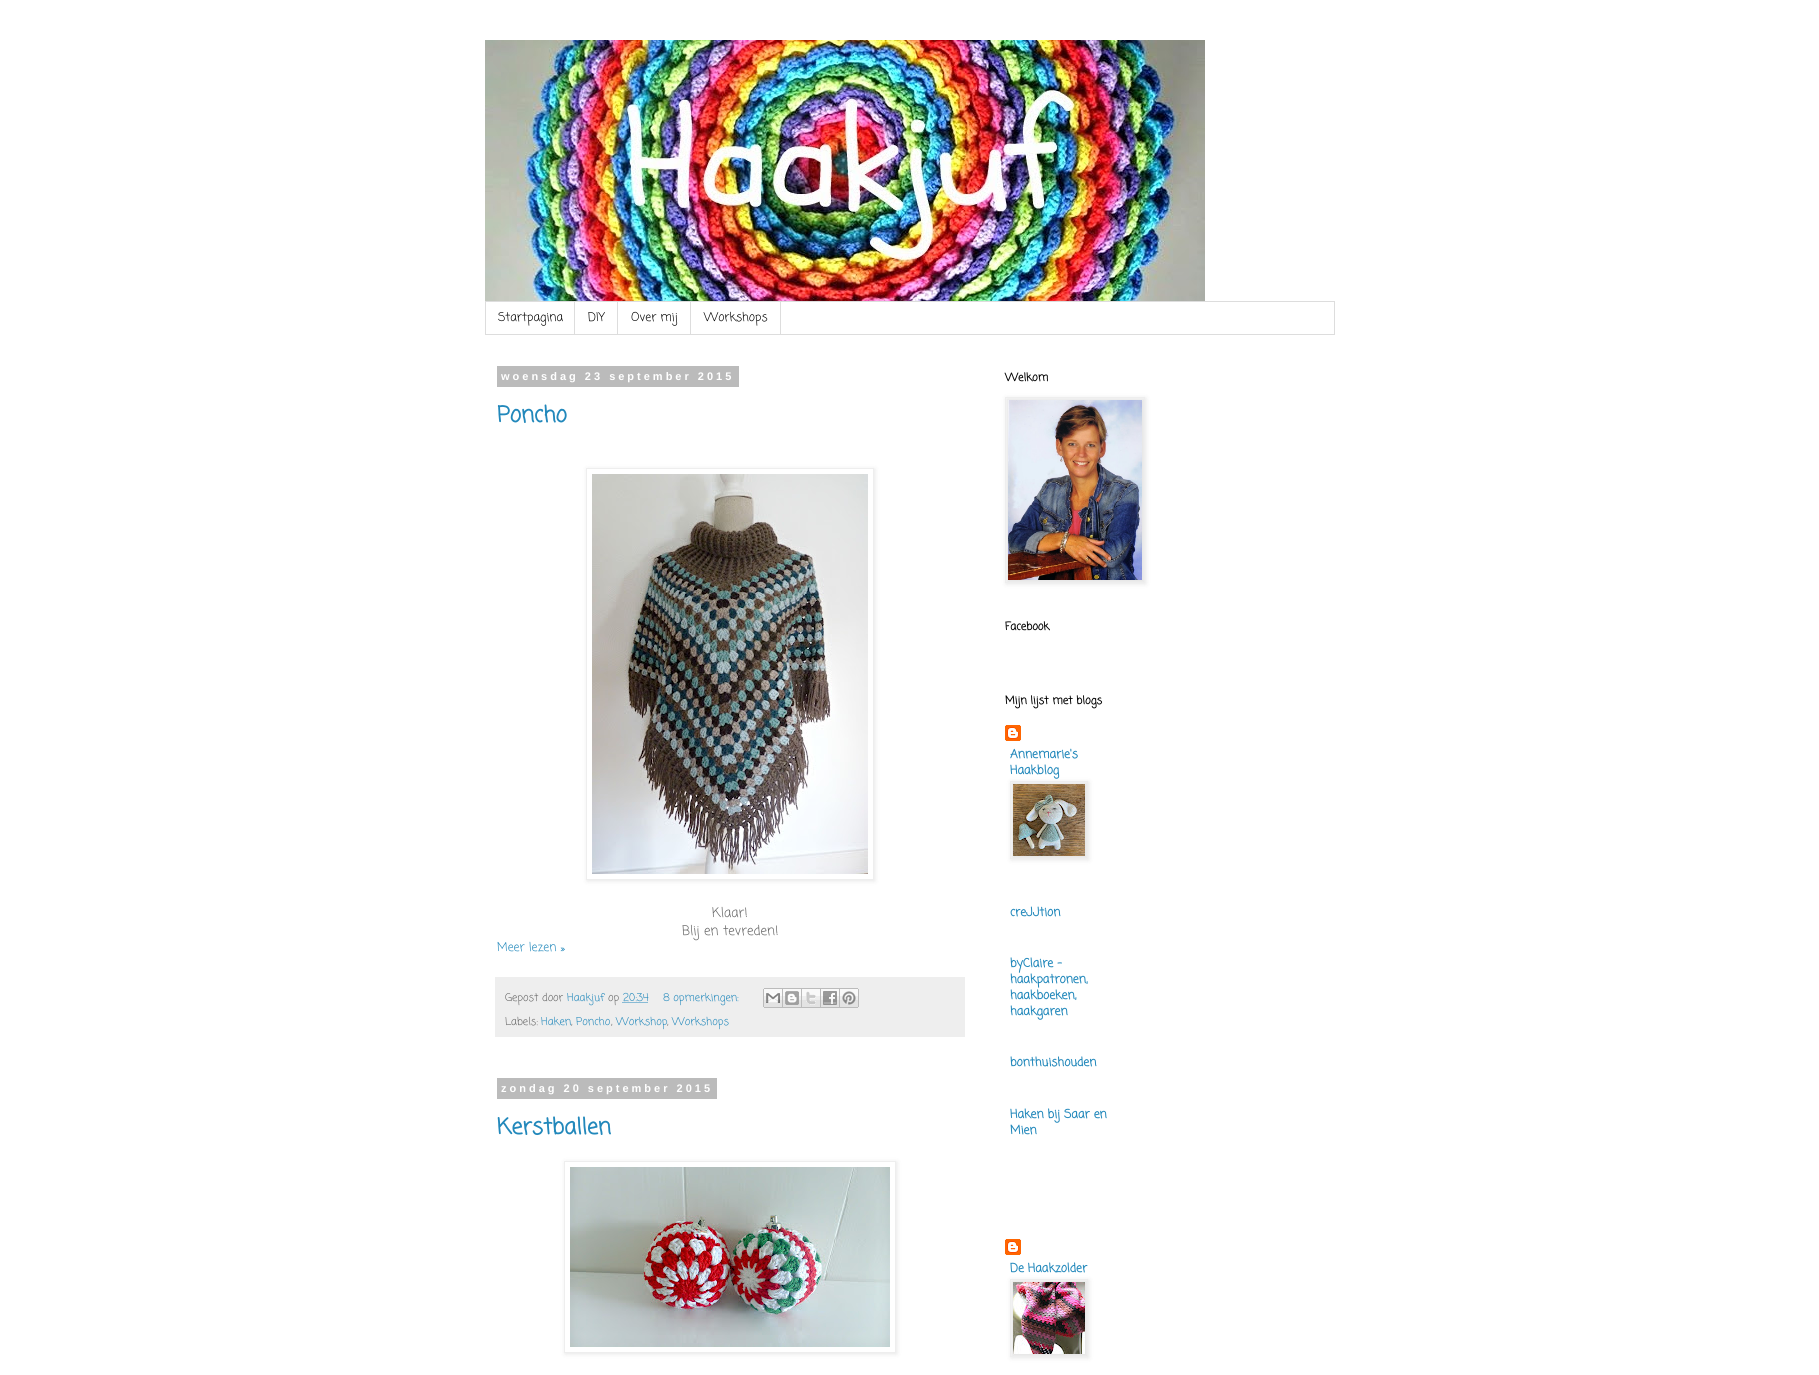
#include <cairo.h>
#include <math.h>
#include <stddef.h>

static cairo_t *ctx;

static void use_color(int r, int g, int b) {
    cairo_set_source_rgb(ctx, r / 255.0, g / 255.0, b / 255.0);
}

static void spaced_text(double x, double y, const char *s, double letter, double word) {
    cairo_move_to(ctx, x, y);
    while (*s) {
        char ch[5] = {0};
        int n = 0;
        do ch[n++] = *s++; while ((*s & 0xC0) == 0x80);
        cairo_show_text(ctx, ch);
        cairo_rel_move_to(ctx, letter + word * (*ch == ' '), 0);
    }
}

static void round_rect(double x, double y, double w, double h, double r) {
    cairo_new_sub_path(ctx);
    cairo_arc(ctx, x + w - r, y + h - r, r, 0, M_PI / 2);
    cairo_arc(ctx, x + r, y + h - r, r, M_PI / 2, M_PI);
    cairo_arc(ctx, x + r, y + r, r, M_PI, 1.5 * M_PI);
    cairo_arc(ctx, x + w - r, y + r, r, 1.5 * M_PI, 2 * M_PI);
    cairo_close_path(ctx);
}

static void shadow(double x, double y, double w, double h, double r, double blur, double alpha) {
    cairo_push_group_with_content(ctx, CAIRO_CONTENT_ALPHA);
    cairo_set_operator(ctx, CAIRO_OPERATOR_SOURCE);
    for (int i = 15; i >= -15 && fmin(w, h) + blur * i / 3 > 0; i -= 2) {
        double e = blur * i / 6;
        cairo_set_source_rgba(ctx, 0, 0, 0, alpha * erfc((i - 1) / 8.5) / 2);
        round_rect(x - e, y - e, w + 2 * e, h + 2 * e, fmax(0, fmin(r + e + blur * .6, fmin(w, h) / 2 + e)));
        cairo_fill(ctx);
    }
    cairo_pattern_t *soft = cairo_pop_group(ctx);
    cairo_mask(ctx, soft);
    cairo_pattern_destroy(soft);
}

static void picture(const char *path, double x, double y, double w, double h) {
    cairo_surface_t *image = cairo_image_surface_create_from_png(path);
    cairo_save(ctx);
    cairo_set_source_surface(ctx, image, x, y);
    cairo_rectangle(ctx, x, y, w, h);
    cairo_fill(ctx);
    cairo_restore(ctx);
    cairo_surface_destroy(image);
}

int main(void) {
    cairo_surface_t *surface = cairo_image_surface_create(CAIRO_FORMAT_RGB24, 1819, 1375);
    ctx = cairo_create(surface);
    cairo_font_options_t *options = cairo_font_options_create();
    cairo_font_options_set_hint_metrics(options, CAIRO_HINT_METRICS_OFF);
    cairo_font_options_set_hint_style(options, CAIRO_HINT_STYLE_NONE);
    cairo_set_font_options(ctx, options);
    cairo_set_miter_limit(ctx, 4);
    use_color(255, 255, 255);
    cairo_paint(ctx);
    picture("img1.png", 485, 40, 720, 261);
    cairo_rectangle(ctx, 485.5, 301.5, 849, 33);
    use_color(221, 221, 221);
    cairo_set_line_width(ctx, 1);
    cairo_stroke(ctx);
    cairo_rectangle(ctx, 574, 302, 1, 32);
    cairo_fill(ctx);
    cairo_select_font_face(ctx, "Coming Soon", CAIRO_FONT_SLANT_NORMAL, CAIRO_FONT_WEIGHT_NORMAL);
    cairo_set_font_size(ctx, 12);
    use_color(0, 0, 0);
    cairo_move_to(ctx, 498, 321);
    cairo_show_text(ctx, "Startpagina");
    use_color(221, 221, 221);
    cairo_rectangle(ctx, 617, 302, 1, 32);
    cairo_fill(ctx);
    use_color(0, 0, 0);
    cairo_move_to(ctx, 588, 321);
    cairo_show_text(ctx, "DIY");
    use_color(221, 221, 221);
    cairo_rectangle(ctx, 690, 302, 1, 32);
    cairo_fill(ctx);
    use_color(0, 0, 0);
    cairo_move_to(ctx, 631, 321);
    cairo_show_text(ctx, "Over mij");
    use_color(221, 221, 221);
    cairo_rectangle(ctx, 780, 302, 1, 32);
    cairo_fill(ctx);
    use_color(0, 0, 0);
    cairo_move_to(ctx, 704, 321);
    cairo_show_text(ctx, "Workshops");
    use_color(187, 187, 187);
    cairo_rectangle(ctx, 497, 366, 242, 21);
    cairo_fill(ctx);
    cairo_select_font_face(ctx, "Liberation Sans", CAIRO_FONT_SLANT_NORMAL, CAIRO_FONT_WEIGHT_BOLD);
    cairo_set_font_size(ctx, 11);
    use_color(255, 255, 255);
    spaced_text(501, 380, "woensdag 23 september 2015", 3, 0);
    cairo_select_font_face(ctx, "Coming Soon", CAIRO_FONT_SLANT_NORMAL, CAIRO_FONT_WEIGHT_BOLD);
    cairo_set_font_size(ctx, 22);
    use_color(34, 136, 187);
    cairo_move_to(ctx, 497, 422);
    cairo_show_text(ctx, "Poncho");
    cairo_save(ctx);
    cairo_set_fill_rule(ctx, CAIRO_FILL_RULE_EVEN_ODD);
    cairo_new_path(ctx);
    cairo_move_to(ctx, 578, 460);
    cairo_line_to(ctx, 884, 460);
    cairo_line_to(ctx, 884, 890);
    cairo_line_to(ctx, 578, 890);
    cairo_close_path(ctx);
    cairo_move_to(ctx, 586, 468);
    cairo_line_to(ctx, 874, 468);
    cairo_line_to(ctx, 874, 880);
    cairo_line_to(ctx, 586, 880);
    cairo_close_path(ctx);
    cairo_clip(ctx);
    use_color(0, 0, 0);
    shadow(587, 469, 288, 412, 0, 2.5, 0.1);
    cairo_restore(ctx);
    cairo_rectangle(ctx, 586.5, 468.5, 287, 411);
    use_color(238, 238, 238);
    cairo_stroke(ctx);
    picture("img2.png", 592, 474, 276, 400);
    cairo_select_font_face(ctx, "Coming Soon", CAIRO_FONT_SLANT_NORMAL, CAIRO_FONT_WEIGHT_NORMAL);
    cairo_set_font_size(ctx, 13.25);
    use_color(102, 102, 102);
    cairo_move_to(ctx, 712, 917);
    cairo_show_text(ctx, "Klaar!");
    cairo_move_to(ctx, 682, 935);
    cairo_show_text(ctx, "Blij en tevreden!");
    cairo_set_font_size(ctx, 12);
    use_color(34, 136, 187);
    cairo_move_to(ctx, 497, 951);
    cairo_show_text(ctx, "Meer lezen »");
    use_color(238, 238, 238);
    cairo_rectangle(ctx, 495, 977, 470, 60);
    cairo_fill(ctx);
    cairo_set_font_size(ctx, 10.75);
    use_color(102, 102, 102);
    cairo_move_to(ctx, 505, 1001);
    cairo_show_text(ctx, "Gepost door");
    use_color(34, 136, 187);
    cairo_move_to(ctx, 567, 1001);
    cairo_show_text(ctx, "Haakjuf");
    use_color(102, 102, 102);
    cairo_move_to(ctx, 608, 1001);
    cairo_show_text(ctx, "op");
    cairo_new_path(ctx);
    cairo_move_to(ctx, 622.5, 1002.5);
    cairo_line_to(ctx, 648.5, 1002.5);
    use_color(34, 136, 187);
    cairo_set_dash(ctx, (double[]){1, 1}, 2, 0);
    cairo_stroke(ctx);
    cairo_move_to(ctx, 623, 1001);
    cairo_show_text(ctx, "20:34");
    cairo_move_to(ctx, 663, 1001);
    cairo_show_text(ctx, "8 opmerkingen:");
    picture("img3.png", 763, 988, 20, 20);
    picture("img4.png", 783, 988, 19, 20);
    picture("img5.png", 802, 988, 19, 20);
    picture("img6.png", 821, 988, 19, 20);
    picture("img7.png", 840, 988, 19, 20);
    use_color(102, 102, 102);
    cairo_move_to(ctx, 505, 1025);
    cairo_show_text(ctx, "Labels:");
    use_color(34, 136, 187);
    cairo_move_to(ctx, 541, 1025);
    cairo_show_text(ctx, "Haken");
    cairo_move_to(ctx, 576, 1025);
    cairo_show_text(ctx, "Poncho");
    cairo_move_to(ctx, 616, 1025);
    cairo_show_text(ctx, "Workshop");
    cairo_move_to(ctx, 672, 1025);
    cairo_show_text(ctx, "Workshops");
    use_color(102, 102, 102);
    cairo_move_to(ctx, 571, 1025);
    cairo_show_text(ctx, ",");
    cairo_move_to(ctx, 611, 1025);
    cairo_show_text(ctx, ",");
    cairo_move_to(ctx, 667, 1025);
    cairo_show_text(ctx, ",");
    use_color(187, 187, 187);
    cairo_rectangle(ctx, 497, 1078, 220, 21);
    cairo_fill(ctx);
    cairo_select_font_face(ctx, "Liberation Sans", CAIRO_FONT_SLANT_NORMAL, CAIRO_FONT_WEIGHT_BOLD);
    cairo_set_font_size(ctx, 11);
    use_color(255, 255, 255);
    spaced_text(501, 1092, "zondag 20 september 2015", 3, 0);
    cairo_select_font_face(ctx, "Coming Soon", CAIRO_FONT_SLANT_NORMAL, CAIRO_FONT_WEIGHT_BOLD);
    cairo_set_font_size(ctx, 22);
    use_color(34, 136, 187);
    cairo_move_to(ctx, 497, 1134);
    cairo_show_text(ctx, "Kerstballen");
    cairo_save(ctx);
    cairo_set_fill_rule(ctx, CAIRO_FILL_RULE_EVEN_ODD);
    cairo_new_path(ctx);
    cairo_move_to(ctx, 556, 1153);
    cairo_line_to(ctx, 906, 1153);
    cairo_line_to(ctx, 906, 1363);
    cairo_line_to(ctx, 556, 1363);
    cairo_close_path(ctx);
    cairo_move_to(ctx, 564, 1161);
    cairo_line_to(ctx, 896, 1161);
    cairo_line_to(ctx, 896, 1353);
    cairo_line_to(ctx, 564, 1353);
    cairo_close_path(ctx);
    cairo_clip(ctx);
    use_color(0, 0, 0);
    shadow(565, 1162, 332, 192, 0, 2.5, 0.1);
    cairo_restore(ctx);
    cairo_rectangle(ctx, 564.5, 1161.5, 331, 191);
    use_color(238, 238, 238);
    cairo_set_dash(ctx, NULL, 0, 0);
    cairo_stroke(ctx);
    picture("img8.png", 570, 1167, 320, 180);
    cairo_set_font_size(ctx, 11);
    use_color(0, 0, 0);
    cairo_move_to(ctx, 1005, 381);
    cairo_show_text(ctx, "Welkom");
    use_color(0, 0, 0);
    shadow(1006, 398, 140, 186, 0, 2.5, 0.1);
    cairo_rectangle(ctx, 1005.5, 397.5, 139, 185);
    use_color(238, 238, 238);
    cairo_stroke(ctx);
    picture("img9.png", 1008, 400, 134, 180);
    use_color(0, 0, 0);
    cairo_move_to(ctx, 1005, 630);
    cairo_show_text(ctx, "Facebook");
    cairo_move_to(ctx, 1005, 704);
    cairo_show_text(ctx, "Mijn lijst met blogs");
    picture("img10.png", 1005, 725, 16, 16);
    cairo_set_font_size(ctx, 12);
    use_color(34, 136, 187);
    cairo_move_to(ctx, 1010, 758);
    cairo_show_text(ctx, "Annemarie's");
    cairo_move_to(ctx, 1010, 774);
    cairo_show_text(ctx, "Haakblog");
    use_color(0, 0, 0);
    shadow(1011, 782, 78, 78, 0, 2.5, 0.1);
    cairo_rectangle(ctx, 1010.5, 781.5, 77, 77);
    use_color(238, 238, 238);
    cairo_stroke(ctx);
    picture("img11.png", 1013, 784, 72, 72);
    use_color(34, 136, 187);
    cairo_move_to(ctx, 1010, 916);
    cairo_show_text(ctx, "creJJtion");
    cairo_move_to(ctx, 1010, 967);
    cairo_show_text(ctx, "byClaire –");
    cairo_move_to(ctx, 1010, 983);
    cairo_show_text(ctx, "haakpatronen,");
    cairo_move_to(ctx, 1010, 999);
    cairo_show_text(ctx, "haakboeken,");
    cairo_move_to(ctx, 1010, 1015);
    cairo_show_text(ctx, "haakgaren");
    cairo_move_to(ctx, 1010, 1066);
    cairo_show_text(ctx, "bonthuishouden");
    cairo_move_to(ctx, 1010, 1118);
    cairo_show_text(ctx, "Haken bij Saar en");
    cairo_move_to(ctx, 1010, 1134);
    cairo_show_text(ctx, "Mien");
    picture("img10.png", 1005, 1239, 16, 16);
    cairo_move_to(ctx, 1010, 1272);
    cairo_show_text(ctx, "De Haakzolder");
    use_color(0, 0, 0);
    shadow(1011, 1280, 78, 78, 0, 2.5, 0.1);
    cairo_rectangle(ctx, 1010.5, 1279.5, 77, 77);
    use_color(238, 238, 238);
    cairo_stroke(ctx);
    picture("img12.png", 1013, 1282, 72, 72);
    cairo_surface_write_to_png(surface, "result.png");
    cairo_font_options_destroy(options);
    cairo_destroy(ctx);
    cairo_surface_destroy(surface);
    return 0;
}
